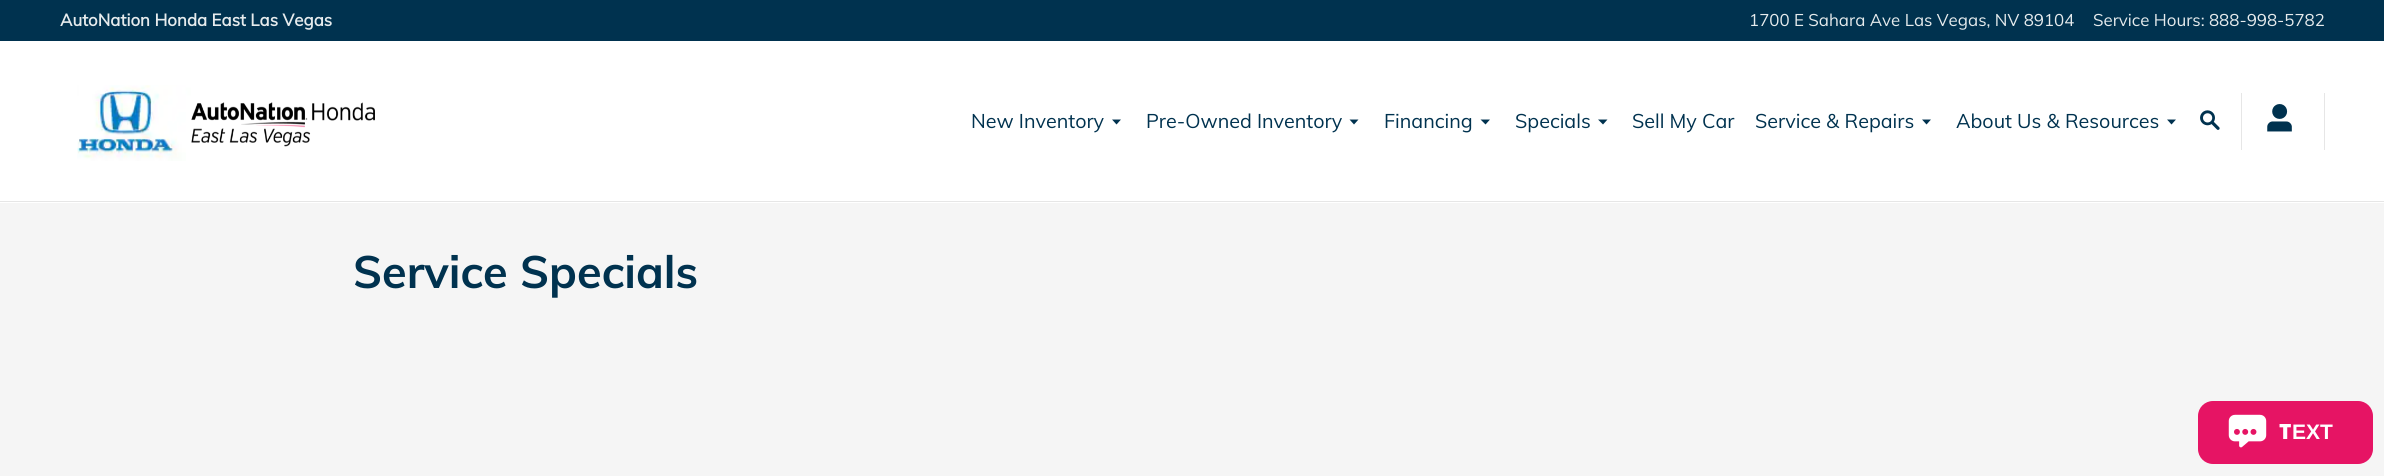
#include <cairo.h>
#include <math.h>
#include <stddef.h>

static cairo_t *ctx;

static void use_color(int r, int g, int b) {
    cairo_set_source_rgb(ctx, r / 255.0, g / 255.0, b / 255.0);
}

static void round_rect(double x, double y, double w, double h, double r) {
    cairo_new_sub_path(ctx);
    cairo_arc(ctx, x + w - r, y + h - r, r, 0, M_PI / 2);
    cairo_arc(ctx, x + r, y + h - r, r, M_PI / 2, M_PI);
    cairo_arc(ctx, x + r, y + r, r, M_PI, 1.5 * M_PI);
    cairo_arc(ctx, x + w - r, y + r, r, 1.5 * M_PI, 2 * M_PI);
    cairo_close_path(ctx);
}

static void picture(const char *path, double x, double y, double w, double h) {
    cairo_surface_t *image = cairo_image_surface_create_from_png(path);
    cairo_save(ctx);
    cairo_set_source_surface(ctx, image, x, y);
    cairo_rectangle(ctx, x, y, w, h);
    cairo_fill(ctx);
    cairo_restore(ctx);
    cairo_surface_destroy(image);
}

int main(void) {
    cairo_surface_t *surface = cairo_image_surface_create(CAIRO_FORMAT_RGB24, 2384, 476);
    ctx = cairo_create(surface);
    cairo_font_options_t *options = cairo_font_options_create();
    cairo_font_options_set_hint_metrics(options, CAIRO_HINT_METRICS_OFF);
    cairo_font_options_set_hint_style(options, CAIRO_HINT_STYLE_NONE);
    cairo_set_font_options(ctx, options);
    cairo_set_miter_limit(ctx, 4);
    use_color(245, 245, 245);
    cairo_paint(ctx);
    use_color(255, 255, 255);
    cairo_rectangle(ctx, 0, 41, 2384, 162);
    cairo_fill(ctx);
    use_color(230, 230, 230);
    cairo_rectangle(ctx, 0, 201, 2384, 1);
    cairo_fill(ctx);
    use_color(0, 50, 79);
    cairo_rectangle(ctx, 0, 0, 2384, 41);
    cairo_fill(ctx);
    cairo_select_font_face(ctx, "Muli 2", CAIRO_FONT_SLANT_NORMAL, CAIRO_FONT_WEIGHT_BOLD);
    cairo_set_font_size(ctx, 16.9);
    use_color(230, 235, 237);
    cairo_move_to(ctx, 60, 26);
    cairo_show_text(ctx, "AutoNation Honda East Las Vegas");
    cairo_select_font_face(ctx, "Muli", CAIRO_FONT_SLANT_NORMAL, CAIRO_FONT_WEIGHT_NORMAL);
    cairo_move_to(ctx, 1749, 26);
    cairo_show_text(ctx, "1700 E Sahara Ave Las Vegas, NV 89104");
    cairo_move_to(ctx, 2093, 26);
    cairo_show_text(ctx, "Service Hours: 888-998-5782");
    picture("img2.png", 191, 102, 184, 45);
    picture("img1.png", 77, 85, 115, 76);
    cairo_set_font_size(ctx, 19.75);
    use_color(0, 50, 79);
    cairo_move_to(ctx, 971, 128);
    cairo_show_text(ctx, "New Inventory");
    cairo_new_path(ctx);
    cairo_move_to(ctx, 1121, 119.5);
    cairo_line_to(ctx, 1112, 119.5);
    cairo_line_to(ctx, 1116.5, 124.5);
    cairo_close_path(ctx);
    cairo_fill(ctx);
    cairo_move_to(ctx, 1146, 128);
    cairo_show_text(ctx, "Pre-Owned Inventory");
    cairo_new_path(ctx);
    cairo_move_to(ctx, 1358.5, 119.5);
    cairo_line_to(ctx, 1349.5, 119.5);
    cairo_line_to(ctx, 1354, 124.5);
    cairo_close_path(ctx);
    cairo_fill(ctx);
    cairo_move_to(ctx, 1384, 128);
    cairo_show_text(ctx, "Financing");
    cairo_new_path(ctx);
    cairo_move_to(ctx, 1490, 119.5);
    cairo_line_to(ctx, 1480.5, 119.5);
    cairo_line_to(ctx, 1485.5, 124.5);
    cairo_close_path(ctx);
    cairo_fill(ctx);
    cairo_move_to(ctx, 1515, 128);
    cairo_show_text(ctx, "Specials");
    cairo_new_path(ctx);
    cairo_move_to(ctx, 1607.5, 119.5);
    cairo_line_to(ctx, 1598, 119.5);
    cairo_line_to(ctx, 1603, 124.5);
    cairo_close_path(ctx);
    cairo_fill(ctx);
    cairo_move_to(ctx, 1632, 128);
    cairo_show_text(ctx, "Sell My Car");
    cairo_move_to(ctx, 1755, 128);
    cairo_show_text(ctx, "Service & Repairs");
    cairo_new_path(ctx);
    cairo_move_to(ctx, 1931, 119.5);
    cairo_line_to(ctx, 1922, 119.5);
    cairo_line_to(ctx, 1926.5, 124.5);
    cairo_close_path(ctx);
    cairo_fill(ctx);
    cairo_move_to(ctx, 1956, 128);
    cairo_show_text(ctx, "About Us & Resources");
    cairo_new_path(ctx);
    cairo_move_to(ctx, 2176, 119.5);
    cairo_line_to(ctx, 2167, 119.5);
    cairo_line_to(ctx, 2171.5, 124.5);
    cairo_close_path(ctx);
    cairo_fill(ctx);
    picture("img3.png", 2200, 110, 20, 20);
    use_color(230, 230, 230);
    cairo_rectangle(ctx, 2241, 93, 1, 57);
    cairo_fill(ctx);
    picture("img4.png", 2267, 104, 25, 28);
    cairo_rectangle(ctx, 2324, 93, 1, 57);
    cairo_fill(ctx);
    cairo_select_font_face(ctx, "Muli", CAIRO_FONT_SLANT_NORMAL, CAIRO_FONT_WEIGHT_BOLD);
    cairo_set_font_size(ctx, 45);
    use_color(0, 50, 79);
    cairo_move_to(ctx, 353, 288);
    cairo_show_text(ctx, "Service Specials");
    use_color(230, 20, 100);
    round_rect(2198, 401, 175, 63, 15);
    cairo_fill(ctx);
    picture("img5.png", 2228, 414, 39, 34);
    cairo_select_font_face(ctx, "Noto Sans Black", CAIRO_FONT_SLANT_NORMAL, CAIRO_FONT_WEIGHT_NORMAL);
    cairo_set_font_size(ctx, 21);
    use_color(255, 255, 255);
    cairo_move_to(ctx, 2279, 439);
    cairo_show_text(ctx, "T");
    cairo_select_font_face(ctx, "Liberation Sans", CAIRO_FONT_SLANT_NORMAL, CAIRO_FONT_WEIGHT_BOLD);
    cairo_move_to(ctx, 2292, 439);
    cairo_show_text(ctx, "EXT");
    cairo_surface_write_to_png(surface, "result.png");
    cairo_font_options_destroy(options);
    cairo_destroy(ctx);
    cairo_surface_destroy(surface);
    return 0;
}
